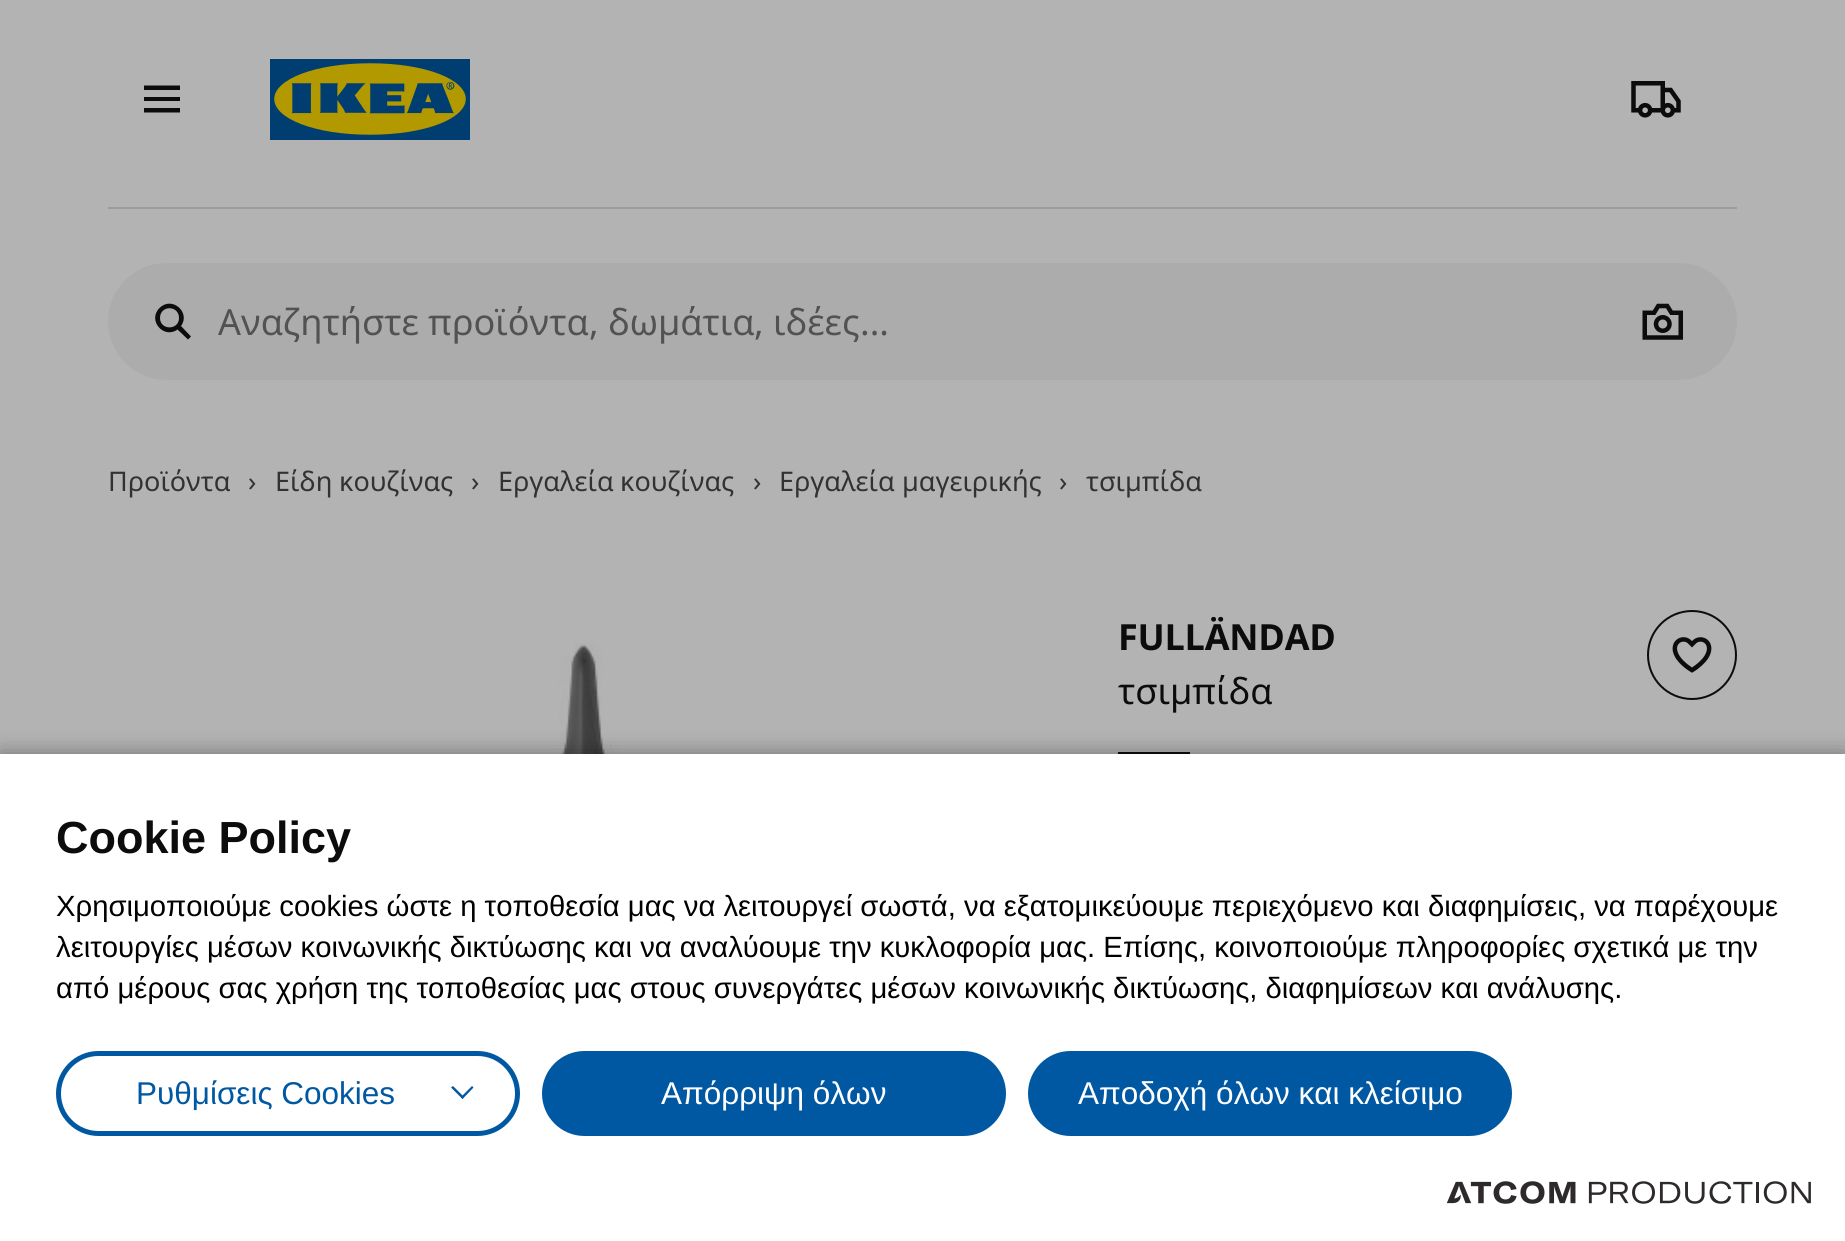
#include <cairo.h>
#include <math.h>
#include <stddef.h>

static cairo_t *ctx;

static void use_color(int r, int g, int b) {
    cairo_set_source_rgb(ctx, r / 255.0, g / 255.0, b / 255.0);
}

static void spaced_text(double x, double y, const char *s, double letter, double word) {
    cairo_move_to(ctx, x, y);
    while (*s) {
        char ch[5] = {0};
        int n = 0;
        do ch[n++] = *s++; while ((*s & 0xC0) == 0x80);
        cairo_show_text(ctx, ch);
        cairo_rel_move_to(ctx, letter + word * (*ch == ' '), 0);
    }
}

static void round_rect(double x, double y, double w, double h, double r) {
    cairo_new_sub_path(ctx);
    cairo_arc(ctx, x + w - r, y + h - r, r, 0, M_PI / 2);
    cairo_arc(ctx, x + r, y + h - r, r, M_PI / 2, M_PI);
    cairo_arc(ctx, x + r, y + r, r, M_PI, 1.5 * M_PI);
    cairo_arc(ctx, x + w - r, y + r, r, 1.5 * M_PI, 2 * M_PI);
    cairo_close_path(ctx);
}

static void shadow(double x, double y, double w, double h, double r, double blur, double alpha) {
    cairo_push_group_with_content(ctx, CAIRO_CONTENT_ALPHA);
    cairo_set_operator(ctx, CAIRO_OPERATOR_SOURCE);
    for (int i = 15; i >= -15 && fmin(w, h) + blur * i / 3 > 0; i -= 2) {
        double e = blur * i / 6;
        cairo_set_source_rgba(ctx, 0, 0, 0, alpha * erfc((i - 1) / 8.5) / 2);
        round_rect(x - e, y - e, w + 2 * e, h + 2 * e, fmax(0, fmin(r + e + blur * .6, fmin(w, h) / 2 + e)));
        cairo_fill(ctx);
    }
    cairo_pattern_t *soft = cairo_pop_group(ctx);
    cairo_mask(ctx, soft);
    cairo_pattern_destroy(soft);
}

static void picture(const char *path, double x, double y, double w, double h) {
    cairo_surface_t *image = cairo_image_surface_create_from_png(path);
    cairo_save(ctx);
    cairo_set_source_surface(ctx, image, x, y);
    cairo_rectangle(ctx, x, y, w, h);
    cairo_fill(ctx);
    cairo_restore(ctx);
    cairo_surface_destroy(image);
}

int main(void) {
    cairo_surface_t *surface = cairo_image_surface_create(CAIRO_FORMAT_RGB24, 1845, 1241);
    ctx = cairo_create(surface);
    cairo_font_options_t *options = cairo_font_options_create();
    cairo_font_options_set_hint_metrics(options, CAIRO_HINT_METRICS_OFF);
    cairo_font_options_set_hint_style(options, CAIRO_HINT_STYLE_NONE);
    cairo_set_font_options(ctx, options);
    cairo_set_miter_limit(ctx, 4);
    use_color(179, 179, 179);
    cairo_paint(ctx);
    use_color(12, 12, 12);
    cairo_set_fill_rule(ctx, CAIRO_FILL_RULE_EVEN_ODD);
    cairo_new_path(ctx);
    cairo_move_to(ctx, 180, 90);
    cairo_line_to(ctx, 144, 90);
    cairo_line_to(ctx, 144, 85.5);
    cairo_line_to(ctx, 180, 85.5);
    cairo_close_path(ctx);
    cairo_move_to(ctx, 180, 101);
    cairo_line_to(ctx, 144, 101);
    cairo_line_to(ctx, 144, 97);
    cairo_line_to(ctx, 180, 97);
    cairo_close_path(ctx);
    cairo_move_to(ctx, 180, 112.5);
    cairo_line_to(ctx, 144, 112.5);
    cairo_line_to(ctx, 144, 108);
    cairo_line_to(ctx, 180, 108);
    cairo_close_path(ctx);
    cairo_fill(ctx);
    picture("img1.png", 270, 59, 200, 81);
    picture("img2.png", 1631, 81, 50, 37);
    use_color(156, 156, 156);
    cairo_rectangle(ctx, 108, 207, 1629, 2);
    cairo_fill(ctx);
    use_color(172, 172, 172);
    round_rect(108, 263, 1629, 117, 58.5);
    cairo_fill(ctx);
    use_color(12, 12, 12);
    cairo_new_path(ctx);
    cairo_move_to(ctx, 177.5, 329.5);
    cairo_curve_to(ctx, 164, 339.5, 147, 320.5, 159.5, 308);
    cairo_curve_to(ctx, 172, 295.5, 191, 312.5, 181, 326);
    cairo_line_to(ctx, 191, 336.5);
    cairo_line_to(ctx, 188, 339.5);
    cairo_close_path(ctx);
    cairo_move_to(ctx, 179, 318);
    cairo_curve_to(ctx, 179, 330.5, 160, 330.5, 160, 318);
    cairo_curve_to(ctx, 160, 305, 179, 305, 179, 318);
    cairo_close_path(ctx);
    cairo_fill(ctx);
    cairo_select_font_face(ctx, "Noto Sans", CAIRO_FONT_SLANT_NORMAL, CAIRO_FONT_WEIGHT_NORMAL);
    cairo_set_font_size(ctx, 36);
    use_color(82, 82, 82);
    cairo_move_to(ctx, 218, 335);
    cairo_show_text(ctx, "Αναζητήστε");
    cairo_move_to(ctx, 428, 335);
    cairo_show_text(ctx, "προϊόντα");
    cairo_select_font_face(ctx, "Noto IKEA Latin", CAIRO_FONT_SLANT_NORMAL, CAIRO_FONT_WEIGHT_NORMAL);
    cairo_move_to(ctx, 589, 335);
    cairo_show_text(ctx, ",");
    cairo_select_font_face(ctx, "Noto Sans", CAIRO_FONT_SLANT_NORMAL, CAIRO_FONT_WEIGHT_NORMAL);
    cairo_move_to(ctx, 608, 335);
    cairo_show_text(ctx, "δωμάτια");
    cairo_select_font_face(ctx, "Noto IKEA Latin", CAIRO_FONT_SLANT_NORMAL, CAIRO_FONT_WEIGHT_NORMAL);
    cairo_move_to(ctx, 754, 335);
    cairo_show_text(ctx, ",");
    cairo_select_font_face(ctx, "Noto Sans", CAIRO_FONT_SLANT_NORMAL, CAIRO_FONT_WEIGHT_NORMAL);
    cairo_move_to(ctx, 773, 335);
    cairo_show_text(ctx, "ιδέες");
    cairo_select_font_face(ctx, "Noto IKEA Latin", CAIRO_FONT_SLANT_NORMAL, CAIRO_FONT_WEIGHT_NORMAL);
    cairo_move_to(ctx, 860, 335);
    cairo_show_text(ctx, "...");
    picture("img3.png", 1642, 303, 41, 37);
    cairo_select_font_face(ctx, "Noto Sans", CAIRO_FONT_SLANT_NORMAL, CAIRO_FONT_WEIGHT_NORMAL);
    cairo_set_font_size(ctx, 27);
    use_color(50, 50, 50);
    cairo_move_to(ctx, 108, 491);
    cairo_show_text(ctx, "Προϊόντα");
    cairo_select_font_face(ctx, "Noto IKEA Latin", CAIRO_FONT_SLANT_NORMAL, CAIRO_FONT_WEIGHT_NORMAL);
    cairo_move_to(ctx, 248, 491);
    cairo_show_text(ctx, "›");
    cairo_select_font_face(ctx, "Noto Sans", CAIRO_FONT_SLANT_NORMAL, CAIRO_FONT_WEIGHT_NORMAL);
    cairo_move_to(ctx, 275, 491);
    cairo_show_text(ctx, "Είδη");
    cairo_move_to(ctx, 339, 491);
    cairo_show_text(ctx, "κουζίνας");
    cairo_select_font_face(ctx, "Noto IKEA Latin", CAIRO_FONT_SLANT_NORMAL, CAIRO_FONT_WEIGHT_NORMAL);
    cairo_move_to(ctx, 471, 491);
    cairo_show_text(ctx, "›");
    cairo_select_font_face(ctx, "Noto Sans", CAIRO_FONT_SLANT_NORMAL, CAIRO_FONT_WEIGHT_NORMAL);
    cairo_move_to(ctx, 498, 491);
    cairo_show_text(ctx, "Εργαλεία");
    cairo_move_to(ctx, 620, 491);
    cairo_show_text(ctx, "κουζίνας");
    cairo_select_font_face(ctx, "Noto IKEA Latin", CAIRO_FONT_SLANT_NORMAL, CAIRO_FONT_WEIGHT_NORMAL);
    cairo_move_to(ctx, 753, 491);
    cairo_show_text(ctx, "›");
    cairo_select_font_face(ctx, "Noto Sans", CAIRO_FONT_SLANT_NORMAL, CAIRO_FONT_WEIGHT_NORMAL);
    cairo_move_to(ctx, 779, 491);
    cairo_show_text(ctx, "Εργαλεία");
    cairo_move_to(ctx, 902, 491);
    cairo_show_text(ctx, "μαγειρικής");
    cairo_select_font_face(ctx, "Noto IKEA Latin", CAIRO_FONT_SLANT_NORMAL, CAIRO_FONT_WEIGHT_NORMAL);
    cairo_move_to(ctx, 1059, 491);
    cairo_show_text(ctx, "›");
    cairo_select_font_face(ctx, "Noto Sans", CAIRO_FONT_SLANT_NORMAL, CAIRO_FONT_WEIGHT_NORMAL);
    cairo_move_to(ctx, 1086, 491);
    cairo_show_text(ctx, "τσιμπίδα");
    picture("img4.png", 509, 643, 152, 111);
    cairo_select_font_face(ctx, "Noto IKEA Latin", CAIRO_FONT_SLANT_NORMAL, CAIRO_FONT_WEIGHT_BOLD);
    cairo_set_font_size(ctx, 36);
    use_color(12, 12, 12);
    spaced_text(1118, 650, "FULLÄNDAD", -0.25, 0);
    cairo_select_font_face(ctx, "Noto Sans", CAIRO_FONT_SLANT_NORMAL, CAIRO_FONT_WEIGHT_NORMAL);
    cairo_move_to(ctx, 1118, 704);
    cairo_show_text(ctx, "τσιμπίδα");
    cairo_rectangle(ctx, 1118, 752, 72, 2);
    cairo_fill(ctx);
    cairo_arc(ctx, 1692, 655, 44, 0, 2 * M_PI);
    cairo_stroke(ctx);
    picture("img5.png", 1672, 637, 40, 36);
    use_color(0, 0, 0);
    shadow(0, 754, 1845, 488, 0, 11, 0.37);
    use_color(255, 255, 255);
    cairo_rectangle(ctx, 0, 754, 1845, 487);
    cairo_fill(ctx);
    cairo_select_font_face(ctx, "Liberation Sans", CAIRO_FONT_SLANT_NORMAL, CAIRO_FONT_WEIGHT_BOLD);
    cairo_set_font_size(ctx, 45);
    use_color(12, 12, 12);
    cairo_move_to(ctx, 56, 853);
    cairo_show_text(ctx, "Cookie Policy");
    cairo_select_font_face(ctx, "Liberation Sans", CAIRO_FONT_SLANT_NORMAL, CAIRO_FONT_WEIGHT_NORMAL);
    cairo_set_font_size(ctx, 29.25);
    use_color(0, 0, 0);
    cairo_move_to(ctx, 56, 916);
    cairo_show_text(ctx, "Χρησιμοποιούμε cookies ώστε η τοποθεσία μας να λειτουργεί σωστά, να εξατομικεύουμε περιεχόμενο και διαφημίσεις, να παρέχουμε");
    cairo_move_to(ctx, 56, 957);
    cairo_show_text(ctx, "λειτουργίες μέσων κοινωνικής δικτύωσης και να αναλύουμε την κυκλοφορία μας. Επίσης, κοινοποιούμε πληροφορίες σχετικά με την");
    cairo_move_to(ctx, 56, 998);
    cairo_show_text(ctx, "από μέρους σας χρήση της τοποθεσίας μας στους συνεργάτες μέσων κοινωνικής δικτύωσης, διαφημίσεων και ανάλυσης.");
    round_rect(58.5, 1053.5, 459, 80, 40);
    use_color(0, 88, 163);
    cairo_set_line_width(ctx, 5);
    cairo_stroke(ctx);
    cairo_set_font_size(ctx, 31.5);
    cairo_move_to(ctx, 136, 1104);
    cairo_show_text(ctx, "Ρυθμίσεις Cookies");
    cairo_set_fill_rule(ctx, CAIRO_FILL_RULE_WINDING);
    cairo_new_path(ctx);
    cairo_move_to(ctx, 472, 1086);
    cairo_line_to(ctx, 473.5, 1087.5);
    cairo_line_to(ctx, 462.5, 1099);
    cairo_line_to(ctx, 461, 1097);
    cairo_close_path(ctx);
    cairo_fill(ctx);
    cairo_new_path(ctx);
    cairo_move_to(ctx, 453, 1086);
    cairo_line_to(ctx, 464, 1097);
    cairo_line_to(ctx, 462.5, 1099);
    cairo_line_to(ctx, 451, 1087.5);
    cairo_close_path(ctx);
    cairo_fill(ctx);
    round_rect(544.5, 1053.5, 459, 80, 40);
    cairo_fill_preserve(ctx);
    cairo_stroke(ctx);
    use_color(255, 255, 255);
    cairo_move_to(ctx, 661, 1104);
    cairo_show_text(ctx, "Απόρριψη όλων");
    use_color(0, 88, 163);
    round_rect(1030.5, 1053.5, 479, 80, 40);
    cairo_fill_preserve(ctx);
    cairo_stroke(ctx);
    use_color(255, 255, 255);
    cairo_move_to(ctx, 1078, 1104);
    cairo_show_text(ctx, "Αποδοχή όλων και κλείσιμο");
    picture("img6.png", 1447, 1181, 364, 23);
    cairo_surface_write_to_png(surface, "result.png");
    cairo_font_options_destroy(options);
    cairo_destroy(ctx);
    cairo_surface_destroy(surface);
    return 0;
}
